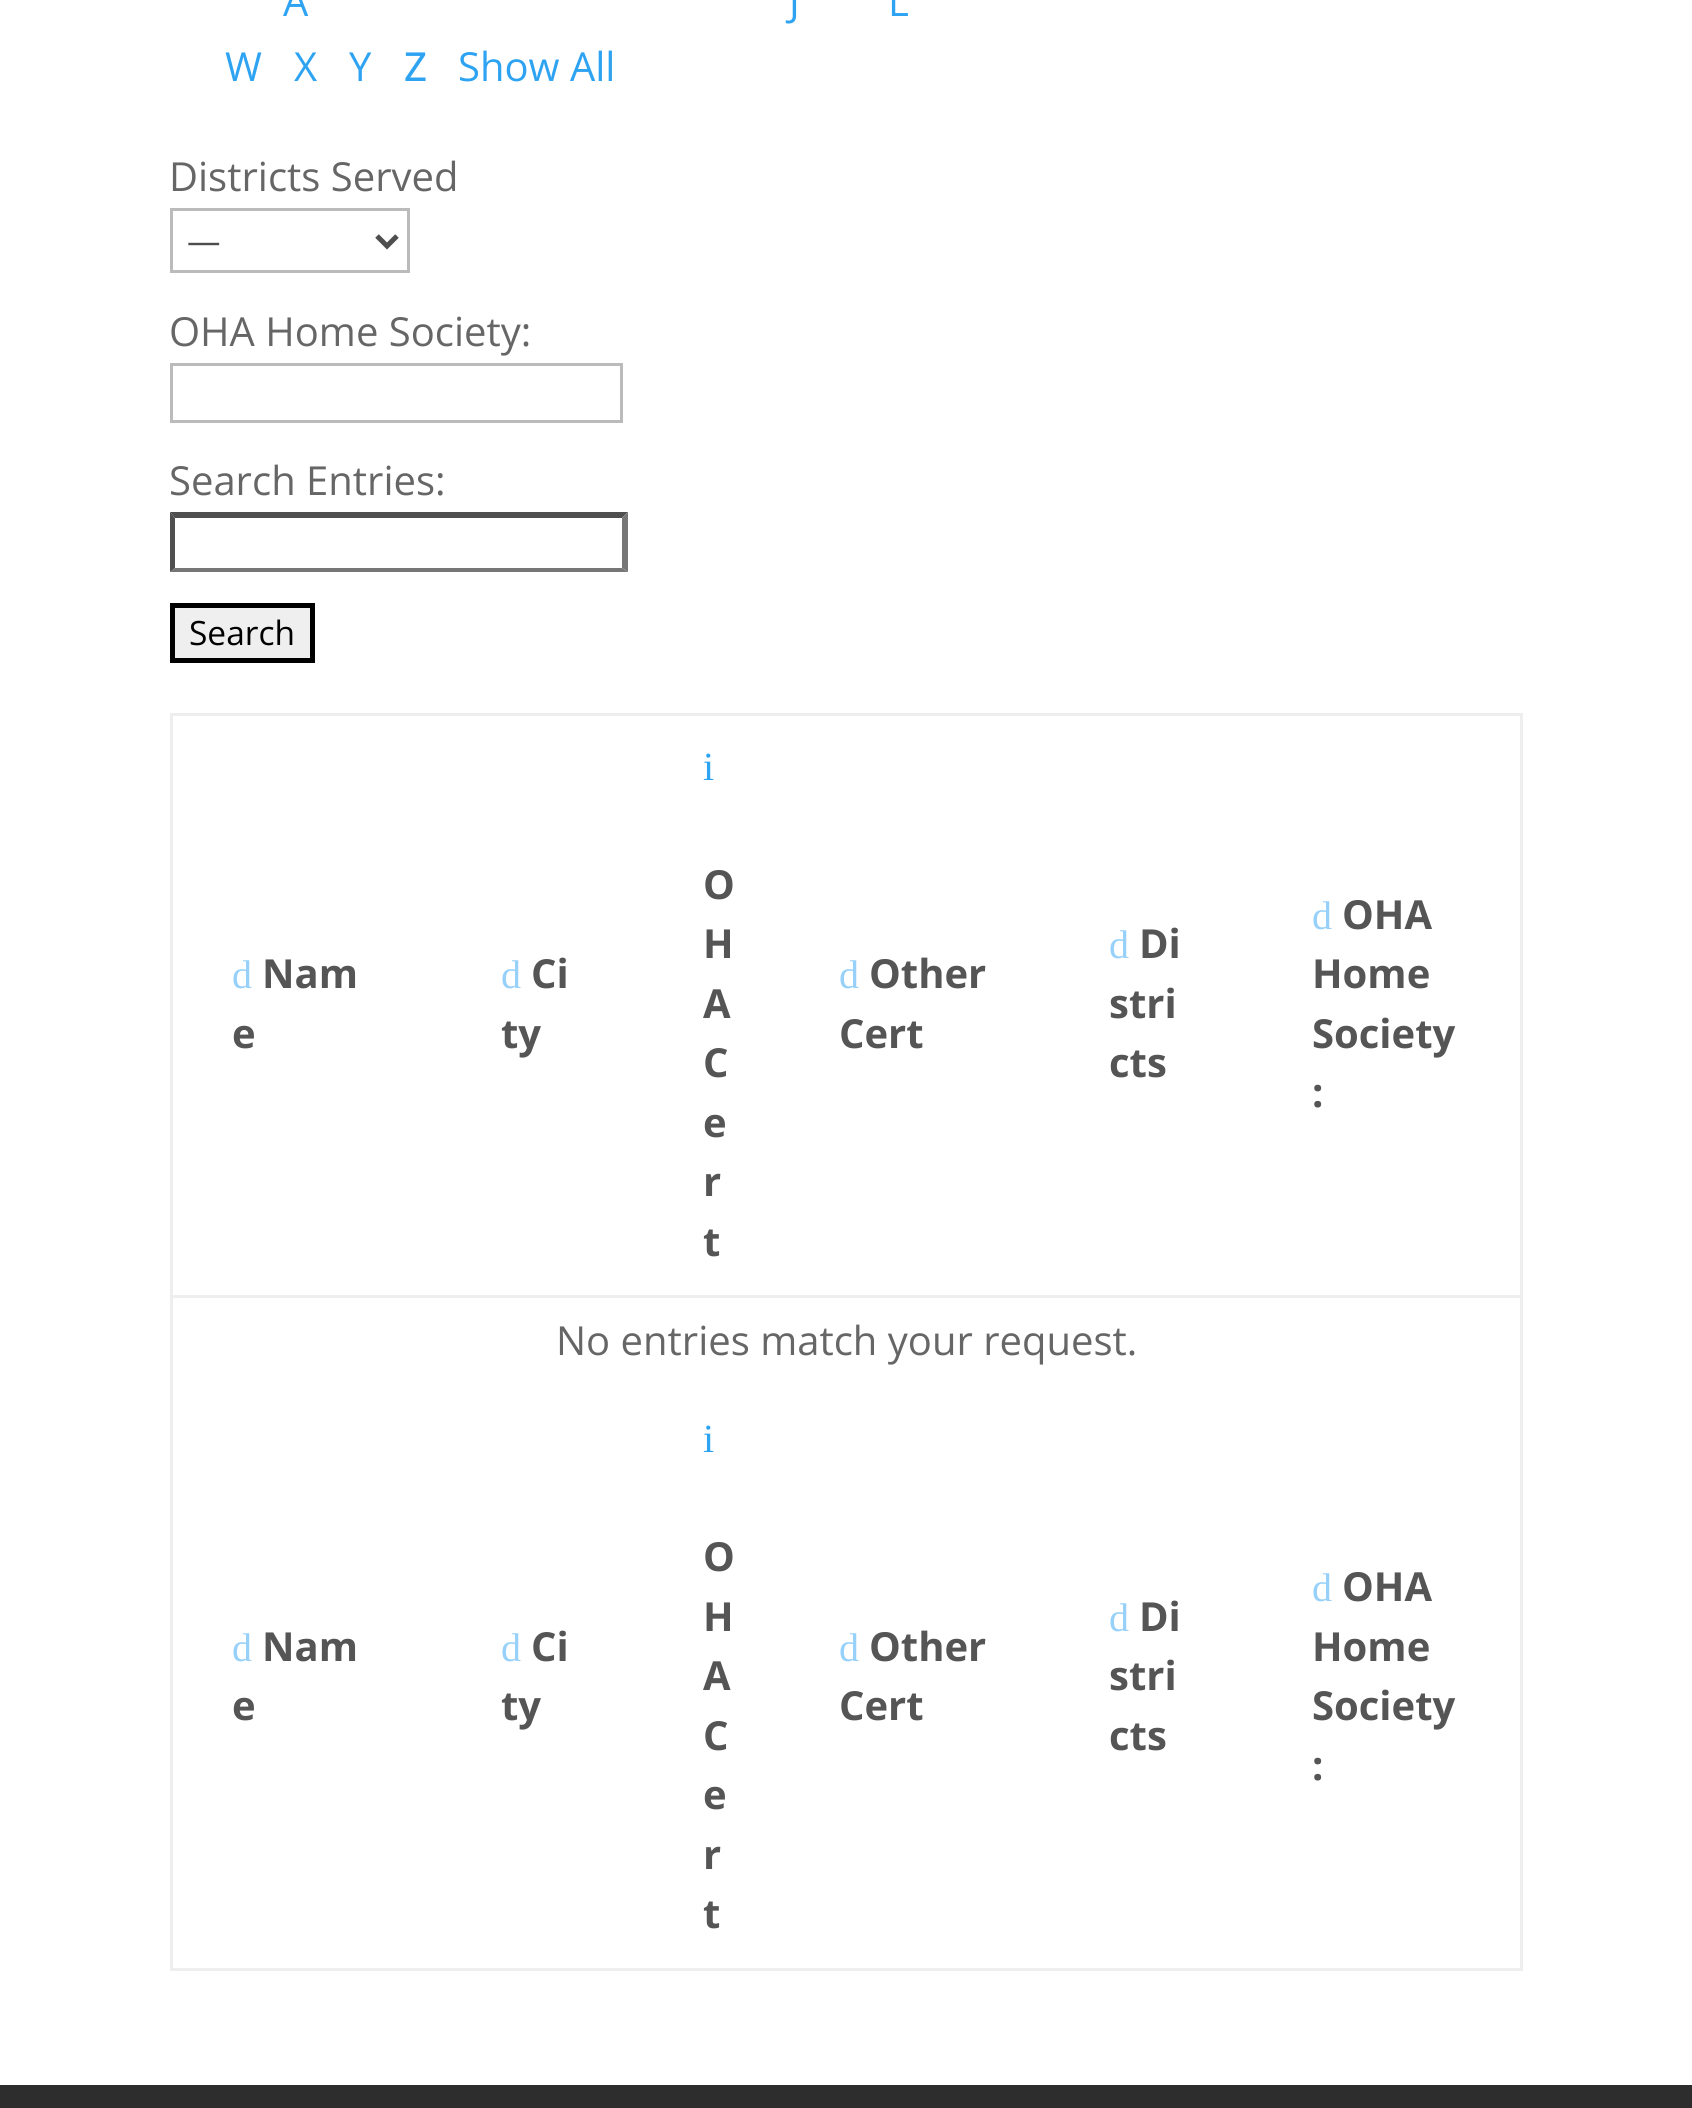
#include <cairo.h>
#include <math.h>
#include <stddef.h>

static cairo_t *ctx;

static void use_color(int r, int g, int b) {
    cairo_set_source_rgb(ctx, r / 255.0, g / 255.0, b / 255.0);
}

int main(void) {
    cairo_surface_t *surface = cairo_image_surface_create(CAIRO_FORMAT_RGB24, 1692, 2108);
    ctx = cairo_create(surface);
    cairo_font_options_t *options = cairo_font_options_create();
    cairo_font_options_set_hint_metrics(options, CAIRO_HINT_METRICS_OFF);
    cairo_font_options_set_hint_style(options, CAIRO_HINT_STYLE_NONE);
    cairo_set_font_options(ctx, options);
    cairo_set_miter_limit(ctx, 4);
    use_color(255, 255, 255);
    cairo_paint(ctx);
    cairo_select_font_face(ctx, "Open Sans", CAIRO_FONT_SLANT_NORMAL, CAIRO_FONT_WEIGHT_NORMAL);
    cairo_set_font_size(ctx, 40);
    use_color(46, 163, 242);
    cairo_move_to(ctx, 283, 16);
    cairo_show_text(ctx, "A");
    cairo_move_to(ctx, 789, 16);
    cairo_show_text(ctx, "J");
    cairo_move_to(ctx, 888, 16);
    cairo_show_text(ctx, "L");
    cairo_move_to(ctx, 225, 81);
    cairo_show_text(ctx, "W");
    cairo_move_to(ctx, 294, 81);
    cairo_show_text(ctx, "X");
    cairo_move_to(ctx, 349, 81);
    cairo_show_text(ctx, "Y");
    cairo_select_font_face(ctx, "Open Sans Medium", CAIRO_FONT_SLANT_NORMAL, CAIRO_FONT_WEIGHT_NORMAL);
    cairo_move_to(ctx, 404, 81);
    cairo_show_text(ctx, "Z");
    cairo_select_font_face(ctx, "Open Sans", CAIRO_FONT_SLANT_NORMAL, CAIRO_FONT_WEIGHT_NORMAL);
    cairo_move_to(ctx, 458, 81);
    cairo_show_text(ctx, "Show All");
    use_color(102, 102, 102);
    cairo_move_to(ctx, 169, 191);
    cairo_show_text(ctx, "Districts Served");
    cairo_rectangle(ctx, 171.5, 209.5, 237, 62);
    use_color(187, 187, 187);
    cairo_set_line_width(ctx, 3);
    cairo_stroke(ctx);
    cairo_new_path(ctx);
    cairo_move_to(ctx, 377, 236);
    cairo_line_to(ctx, 387, 246);
    cairo_line_to(ctx, 397, 236);
    use_color(78, 78, 78);
    cairo_set_line_width(ctx, 5);
    cairo_stroke(ctx);
    cairo_set_font_size(ctx, 33.5);
    cairo_move_to(ctx, 187, 253);
    cairo_show_text(ctx, "—");
    cairo_set_font_size(ctx, 40);
    use_color(102, 102, 102);
    cairo_move_to(ctx, 169, 346);
    cairo_show_text(ctx, "OHA Home Society:");
    cairo_rectangle(ctx, 171.5, 364.5, 450, 57);
    use_color(187, 187, 187);
    cairo_set_line_width(ctx, 3);
    cairo_stroke(ctx);
    use_color(102, 102, 102);
    cairo_move_to(ctx, 169, 495);
    cairo_show_text(ctx, "Search Entries:");
    use_color(79, 79, 79);
    cairo_new_path(ctx);
    cairo_move_to(ctx, 170, 512);
    cairo_line_to(ctx, 628, 512);
    cairo_line_to(ctx, 622, 518);
    cairo_line_to(ctx, 175, 518);
    cairo_close_path(ctx);
    cairo_fill(ctx);
    use_color(118, 118, 118);
    cairo_new_path(ctx);
    cairo_move_to(ctx, 628, 512);
    cairo_line_to(ctx, 628, 572);
    cairo_line_to(ctx, 622, 568);
    cairo_line_to(ctx, 622, 518);
    cairo_close_path(ctx);
    cairo_fill(ctx);
    cairo_new_path(ctx);
    cairo_move_to(ctx, 628, 572);
    cairo_line_to(ctx, 170, 572);
    cairo_line_to(ctx, 175, 568);
    cairo_line_to(ctx, 622, 568);
    cairo_close_path(ctx);
    cairo_fill(ctx);
    use_color(79, 79, 79);
    cairo_new_path(ctx);
    cairo_move_to(ctx, 170, 572);
    cairo_line_to(ctx, 170, 512);
    cairo_line_to(ctx, 175, 518);
    cairo_line_to(ctx, 175, 568);
    cairo_close_path(ctx);
    cairo_fill(ctx);
    use_color(239, 239, 239);
    cairo_rectangle(ctx, 172.5, 605.5, 140, 55);
    cairo_fill_preserve(ctx);
    use_color(0, 0, 0);
    cairo_set_line_width(ctx, 5);
    cairo_stroke(ctx);
    cairo_set_font_size(ctx, 33.5);
    cairo_move_to(ctx, 189, 645);
    cairo_show_text(ctx, "Search");
    use_color(238, 238, 238);
    cairo_rectangle(ctx, 170, 713, 1353, 3);
    cairo_fill(ctx);
    cairo_rectangle(ctx, 1520, 713, 3, 1257);
    cairo_fill(ctx);
    cairo_rectangle(ctx, 170, 1968, 1353, 3);
    cairo_fill(ctx);
    cairo_rectangle(ctx, 170, 713, 3, 1257);
    cairo_fill(ctx);
    cairo_select_font_face(ctx, "Liberation Serif", CAIRO_FONT_SLANT_NORMAL, CAIRO_FONT_WEIGHT_NORMAL);
    cairo_set_font_size(ctx, 40);
    use_color(151, 209, 249);
    cairo_move_to(ctx, 232, 988);
    cairo_show_text(ctx, "d");
    cairo_select_font_face(ctx, "Open Sans", CAIRO_FONT_SLANT_NORMAL, CAIRO_FONT_WEIGHT_BOLD);
    use_color(85, 85, 85);
    cairo_move_to(ctx, 262, 988);
    cairo_show_text(ctx, "Nam");
    cairo_move_to(ctx, 232, 1048);
    cairo_show_text(ctx, "e");
    cairo_select_font_face(ctx, "Liberation Serif", CAIRO_FONT_SLANT_NORMAL, CAIRO_FONT_WEIGHT_NORMAL);
    use_color(151, 209, 249);
    cairo_move_to(ctx, 501, 988);
    cairo_show_text(ctx, "d");
    cairo_select_font_face(ctx, "Open Sans", CAIRO_FONT_SLANT_NORMAL, CAIRO_FONT_WEIGHT_BOLD);
    use_color(85, 85, 85);
    cairo_move_to(ctx, 531, 988);
    cairo_show_text(ctx, "Ci");
    cairo_move_to(ctx, 501, 1048);
    cairo_show_text(ctx, "ty");
    cairo_select_font_face(ctx, "Liberation Serif", CAIRO_FONT_SLANT_NORMAL, CAIRO_FONT_WEIGHT_NORMAL);
    use_color(46, 163, 242);
    cairo_move_to(ctx, 703, 780);
    cairo_show_text(ctx, "i");
    cairo_select_font_face(ctx, "Open Sans", CAIRO_FONT_SLANT_NORMAL, CAIRO_FONT_WEIGHT_BOLD);
    use_color(85, 85, 85);
    cairo_move_to(ctx, 703, 899);
    cairo_show_text(ctx, "O");
    cairo_move_to(ctx, 703, 958);
    cairo_show_text(ctx, "H");
    cairo_move_to(ctx, 703, 1018);
    cairo_show_text(ctx, "A");
    cairo_move_to(ctx, 703, 1077);
    cairo_show_text(ctx, "C");
    cairo_move_to(ctx, 703, 1137);
    cairo_show_text(ctx, "e");
    cairo_move_to(ctx, 703, 1196);
    cairo_show_text(ctx, "r");
    cairo_move_to(ctx, 703, 1256);
    cairo_show_text(ctx, "t");
    cairo_select_font_face(ctx, "Liberation Serif", CAIRO_FONT_SLANT_NORMAL, CAIRO_FONT_WEIGHT_NORMAL);
    use_color(151, 209, 249);
    cairo_move_to(ctx, 839, 988);
    cairo_show_text(ctx, "d");
    cairo_select_font_face(ctx, "Open Sans", CAIRO_FONT_SLANT_NORMAL, CAIRO_FONT_WEIGHT_BOLD);
    use_color(85, 85, 85);
    cairo_move_to(ctx, 869, 988);
    cairo_show_text(ctx, "Other");
    cairo_move_to(ctx, 839, 1048);
    cairo_show_text(ctx, "Cert");
    cairo_select_font_face(ctx, "Liberation Serif", CAIRO_FONT_SLANT_NORMAL, CAIRO_FONT_WEIGHT_NORMAL);
    use_color(151, 209, 249);
    cairo_move_to(ctx, 1109, 958);
    cairo_show_text(ctx, "d");
    cairo_select_font_face(ctx, "Open Sans", CAIRO_FONT_SLANT_NORMAL, CAIRO_FONT_WEIGHT_BOLD);
    use_color(85, 85, 85);
    cairo_move_to(ctx, 1139, 958);
    cairo_show_text(ctx, "Di");
    cairo_move_to(ctx, 1109, 1018);
    cairo_show_text(ctx, "stri");
    cairo_move_to(ctx, 1109, 1077);
    cairo_show_text(ctx, "cts");
    cairo_select_font_face(ctx, "Liberation Serif", CAIRO_FONT_SLANT_NORMAL, CAIRO_FONT_WEIGHT_NORMAL);
    use_color(151, 209, 249);
    cairo_move_to(ctx, 1312, 929);
    cairo_show_text(ctx, "d");
    cairo_select_font_face(ctx, "Open Sans", CAIRO_FONT_SLANT_NORMAL, CAIRO_FONT_WEIGHT_BOLD);
    use_color(85, 85, 85);
    cairo_move_to(ctx, 1342, 929);
    cairo_show_text(ctx, "OHA");
    cairo_move_to(ctx, 1312, 988);
    cairo_show_text(ctx, "Home");
    cairo_move_to(ctx, 1312, 1048);
    cairo_show_text(ctx, "Society");
    cairo_move_to(ctx, 1312, 1107);
    cairo_show_text(ctx, ":");
    use_color(238, 238, 238);
    cairo_rectangle(ctx, 170, 1295, 1353, 3);
    cairo_fill(ctx);
    cairo_select_font_face(ctx, "Open Sans", CAIRO_FONT_SLANT_NORMAL, CAIRO_FONT_WEIGHT_NORMAL);
    use_color(102, 102, 102);
    cairo_move_to(ctx, 556, 1355);
    cairo_show_text(ctx, "No entries match your request.");
    cairo_select_font_face(ctx, "Liberation Serif", CAIRO_FONT_SLANT_NORMAL, CAIRO_FONT_WEIGHT_NORMAL);
    use_color(151, 209, 249);
    cairo_move_to(ctx, 232, 1661);
    cairo_show_text(ctx, "d");
    cairo_select_font_face(ctx, "Open Sans", CAIRO_FONT_SLANT_NORMAL, CAIRO_FONT_WEIGHT_BOLD);
    use_color(85, 85, 85);
    cairo_move_to(ctx, 262, 1661);
    cairo_show_text(ctx, "Nam");
    cairo_move_to(ctx, 232, 1720);
    cairo_show_text(ctx, "e");
    cairo_select_font_face(ctx, "Liberation Serif", CAIRO_FONT_SLANT_NORMAL, CAIRO_FONT_WEIGHT_NORMAL);
    use_color(151, 209, 249);
    cairo_move_to(ctx, 501, 1661);
    cairo_show_text(ctx, "d");
    cairo_select_font_face(ctx, "Open Sans", CAIRO_FONT_SLANT_NORMAL, CAIRO_FONT_WEIGHT_BOLD);
    use_color(85, 85, 85);
    cairo_move_to(ctx, 531, 1661);
    cairo_show_text(ctx, "Ci");
    cairo_move_to(ctx, 501, 1720);
    cairo_show_text(ctx, "ty");
    cairo_select_font_face(ctx, "Liberation Serif", CAIRO_FONT_SLANT_NORMAL, CAIRO_FONT_WEIGHT_NORMAL);
    use_color(46, 163, 242);
    cairo_move_to(ctx, 703, 1452);
    cairo_show_text(ctx, "i");
    cairo_select_font_face(ctx, "Open Sans", CAIRO_FONT_SLANT_NORMAL, CAIRO_FONT_WEIGHT_BOLD);
    use_color(85, 85, 85);
    cairo_move_to(ctx, 703, 1571);
    cairo_show_text(ctx, "O");
    cairo_move_to(ctx, 703, 1631);
    cairo_show_text(ctx, "H");
    cairo_move_to(ctx, 703, 1690);
    cairo_show_text(ctx, "A");
    cairo_move_to(ctx, 703, 1750);
    cairo_show_text(ctx, "C");
    cairo_move_to(ctx, 703, 1809);
    cairo_show_text(ctx, "e");
    cairo_move_to(ctx, 703, 1869);
    cairo_show_text(ctx, "r");
    cairo_move_to(ctx, 703, 1928);
    cairo_show_text(ctx, "t");
    cairo_select_font_face(ctx, "Liberation Serif", CAIRO_FONT_SLANT_NORMAL, CAIRO_FONT_WEIGHT_NORMAL);
    use_color(151, 209, 249);
    cairo_move_to(ctx, 839, 1661);
    cairo_show_text(ctx, "d");
    cairo_select_font_face(ctx, "Open Sans", CAIRO_FONT_SLANT_NORMAL, CAIRO_FONT_WEIGHT_BOLD);
    use_color(85, 85, 85);
    cairo_move_to(ctx, 869, 1661);
    cairo_show_text(ctx, "Other");
    cairo_move_to(ctx, 839, 1720);
    cairo_show_text(ctx, "Cert");
    cairo_select_font_face(ctx, "Liberation Serif", CAIRO_FONT_SLANT_NORMAL, CAIRO_FONT_WEIGHT_NORMAL);
    use_color(151, 209, 249);
    cairo_move_to(ctx, 1109, 1631);
    cairo_show_text(ctx, "d");
    cairo_select_font_face(ctx, "Open Sans", CAIRO_FONT_SLANT_NORMAL, CAIRO_FONT_WEIGHT_BOLD);
    use_color(85, 85, 85);
    cairo_move_to(ctx, 1139, 1631);
    cairo_show_text(ctx, "Di");
    cairo_move_to(ctx, 1109, 1690);
    cairo_show_text(ctx, "stri");
    cairo_move_to(ctx, 1109, 1750);
    cairo_show_text(ctx, "cts");
    cairo_select_font_face(ctx, "Liberation Serif", CAIRO_FONT_SLANT_NORMAL, CAIRO_FONT_WEIGHT_NORMAL);
    use_color(151, 209, 249);
    cairo_move_to(ctx, 1312, 1601);
    cairo_show_text(ctx, "d");
    cairo_select_font_face(ctx, "Open Sans", CAIRO_FONT_SLANT_NORMAL, CAIRO_FONT_WEIGHT_BOLD);
    use_color(85, 85, 85);
    cairo_move_to(ctx, 1342, 1601);
    cairo_show_text(ctx, "OHA");
    cairo_move_to(ctx, 1312, 1661);
    cairo_show_text(ctx, "Home");
    cairo_move_to(ctx, 1312, 1720);
    cairo_show_text(ctx, "Society");
    cairo_move_to(ctx, 1312, 1780);
    cairo_show_text(ctx, ":");
    use_color(45, 45, 45);
    cairo_rectangle(ctx, 0, 2085, 1692, 23);
    cairo_fill(ctx);
    cairo_surface_write_to_png(surface, "result.png");
    cairo_font_options_destroy(options);
    cairo_destroy(ctx);
    cairo_surface_destroy(surface);
    return 0;
}
